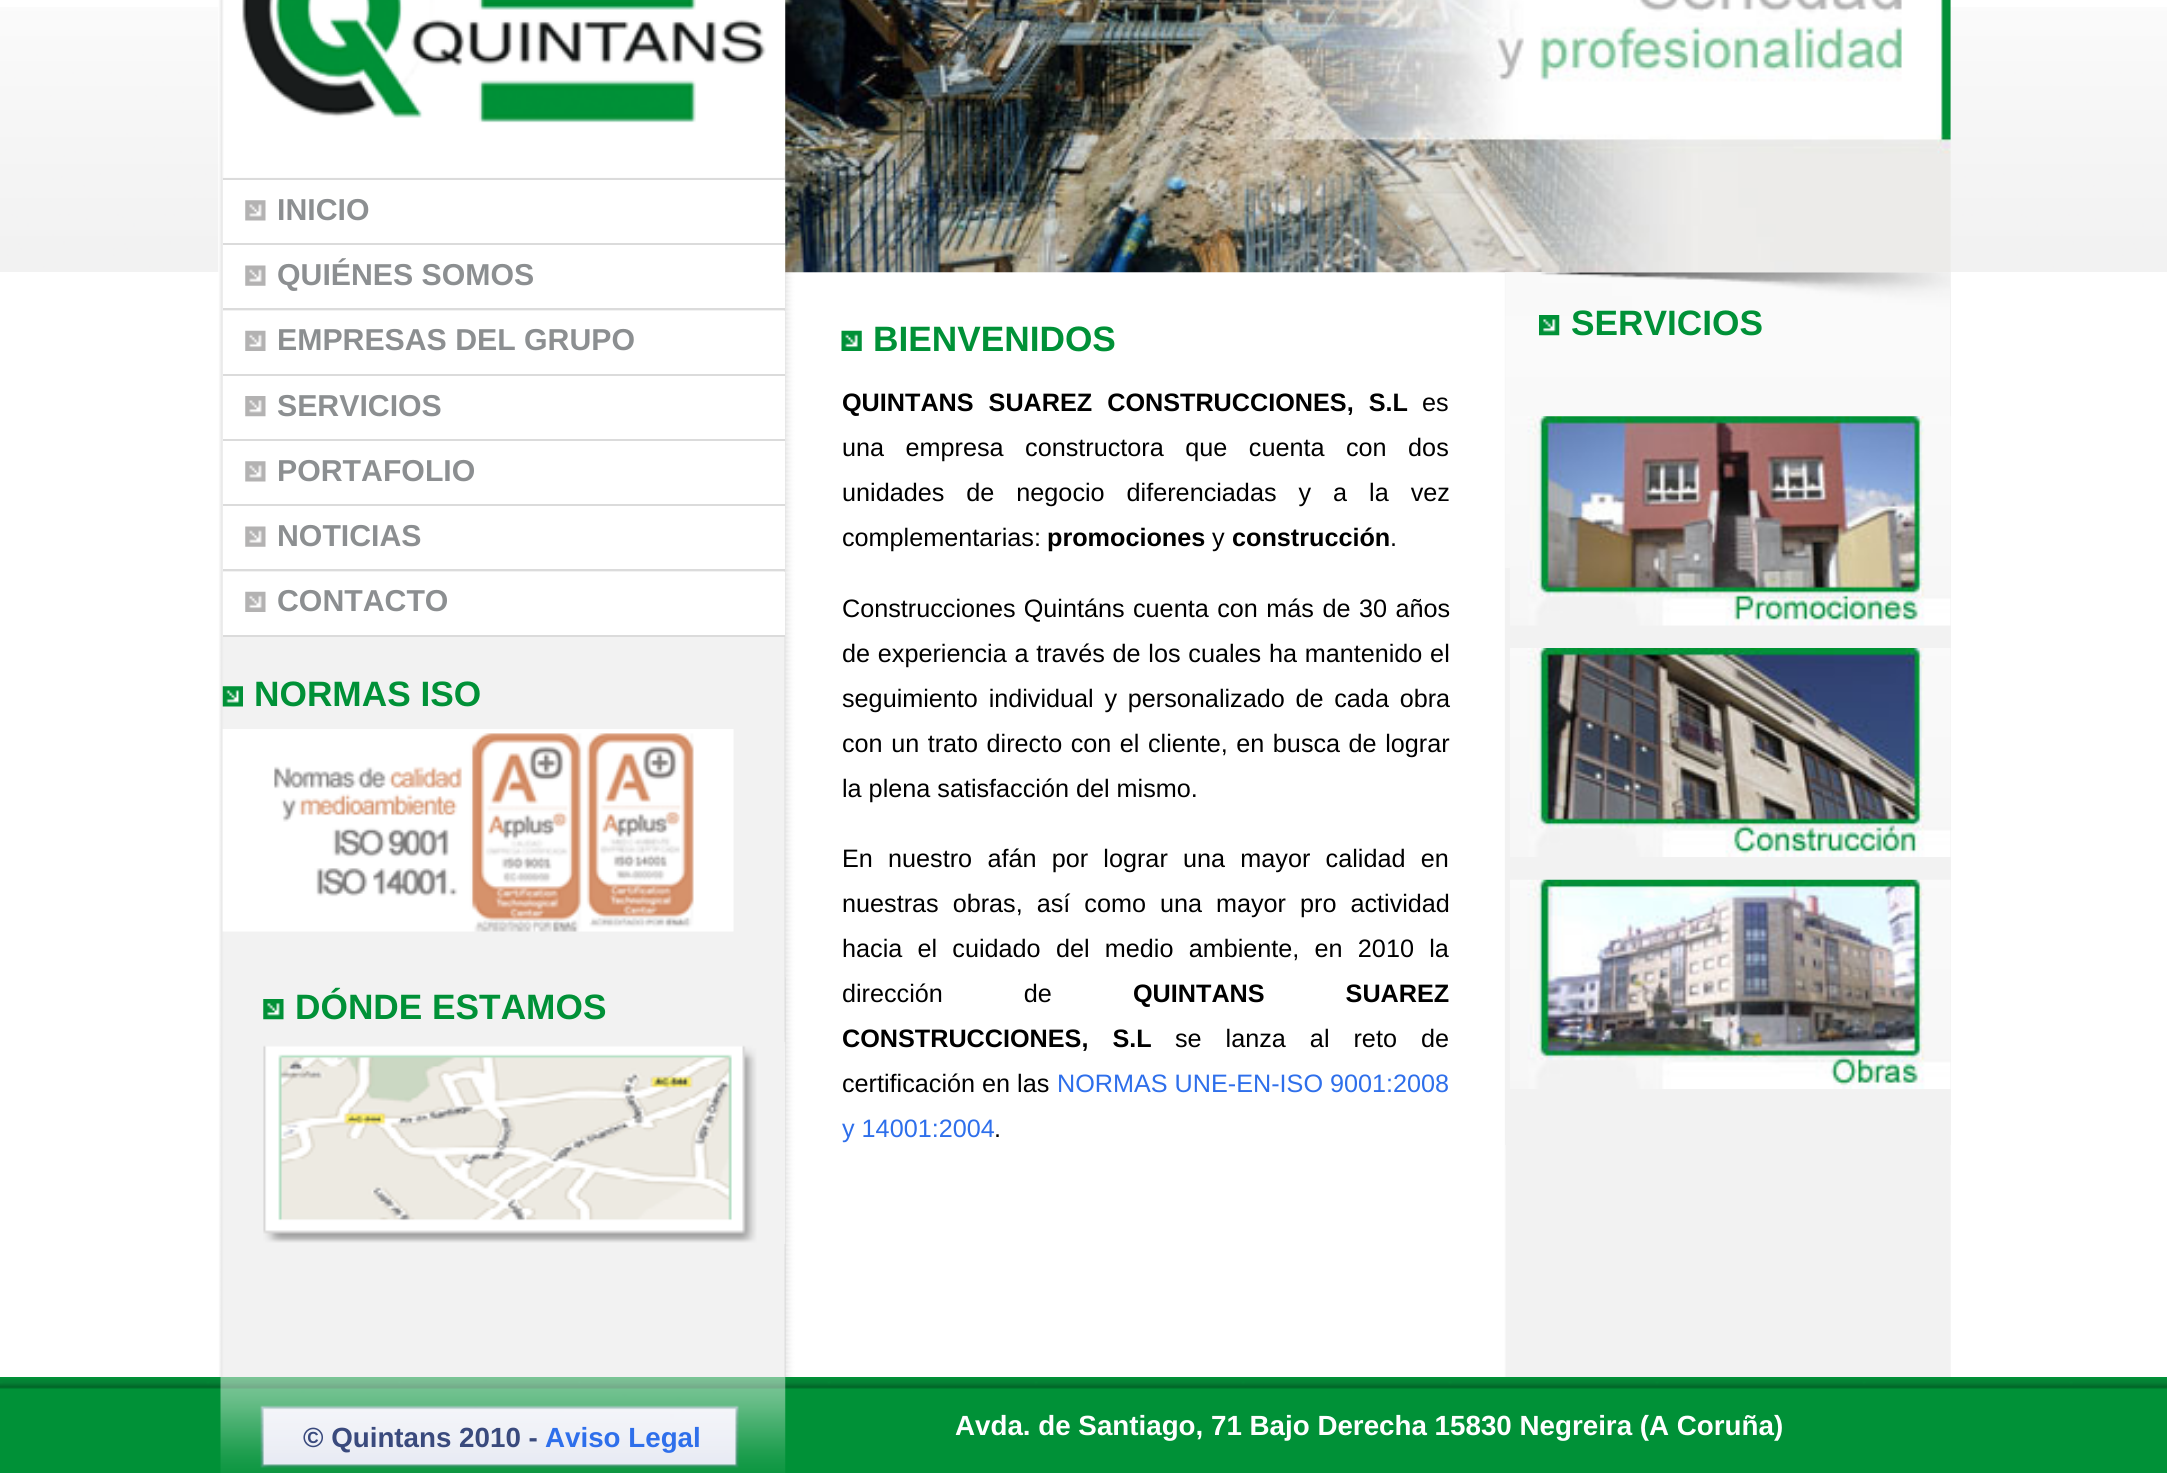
#include <cairo.h>
#include <math.h>
#include <stddef.h>

static cairo_t *ctx;

static void use_color(int r, int g, int b) {
    cairo_set_source_rgb(ctx, r / 255.0, g / 255.0, b / 255.0);
}

static void spaced_text(double x, double y, const char *s, double letter, double word) {
    cairo_move_to(ctx, x, y);
    while (*s) {
        char ch[5] = {0};
        int n = 0;
        do ch[n++] = *s++; while ((*s & 0xC0) == 0x80);
        cairo_show_text(ctx, ch);
        cairo_rel_move_to(ctx, letter + word * (*ch == ' '), 0);
    }
}

static void picture(const char *path, double x, double y, double w, double h) {
    cairo_surface_t *image = cairo_image_surface_create_from_png(path);
    cairo_save(ctx);
    cairo_set_source_surface(ctx, image, x, y);
    cairo_rectangle(ctx, x, y, w, h);
    cairo_fill(ctx);
    cairo_restore(ctx);
    cairo_surface_destroy(image);
}

int main(void) {
    cairo_surface_t *surface = cairo_image_surface_create(CAIRO_FORMAT_RGB24, 2167, 1473);
    ctx = cairo_create(surface);
    cairo_font_options_t *options = cairo_font_options_create();
    cairo_font_options_set_hint_metrics(options, CAIRO_HINT_METRICS_OFF);
    cairo_font_options_set_hint_style(options, CAIRO_HINT_STYLE_NONE);
    cairo_set_font_options(ctx, options);
    cairo_set_miter_limit(ctx, 4);
    use_color(255, 255, 255);
    cairo_paint(ctx);
    picture("img1.png", 0, 7, 2167, 265);
    picture("img2.png", 218, 0, 1733, 1377);
    picture("img3.png", 219, 0, 567, 1377);
    picture("img4.png", 222, 0, 564, 178);
    picture("img5.png", 242, 0, 544, 167);
    use_color(219, 219, 219);
    cairo_rectangle(ctx, 223, 178, 562, 2);
    cairo_fill(ctx);
    cairo_rectangle(ctx, 223, 243, 562, 2);
    cairo_fill(ctx);
    use_color(255, 255, 255);
    cairo_rectangle(ctx, 223, 180, 562, 63);
    cairo_fill(ctx);
    picture("img6.png", 245, 200, 21, 21);
    cairo_select_font_face(ctx, "Liberation Sans", CAIRO_FONT_SLANT_NORMAL, CAIRO_FONT_WEIGHT_BOLD);
    cairo_set_font_size(ctx, 30.25);
    use_color(140, 143, 145);
    cairo_move_to(ctx, 277, 220);
    cairo_show_text(ctx, "INICIO");
    use_color(219, 219, 219);
    cairo_rectangle(ctx, 223, 308, 562, 2);
    cairo_fill(ctx);
    use_color(255, 255, 255);
    cairo_rectangle(ctx, 223, 245, 562, 63);
    cairo_fill(ctx);
    picture("img7.png", 245, 265, 21, 21);
    use_color(140, 143, 145);
    cairo_move_to(ctx, 277, 285);
    cairo_show_text(ctx, "QUIÉNES SOMOS");
    use_color(219, 219, 219);
    cairo_rectangle(ctx, 223, 374, 562, 2);
    cairo_fill(ctx);
    use_color(255, 255, 255);
    cairo_rectangle(ctx, 223, 311, 562, 63);
    cairo_fill(ctx);
    picture("img8.png", 245, 330, 21, 21);
    use_color(140, 143, 145);
    cairo_move_to(ctx, 277, 350);
    cairo_show_text(ctx, "EMPRESAS DEL GRUPO");
    use_color(219, 219, 219);
    cairo_rectangle(ctx, 223, 439, 562, 2);
    cairo_fill(ctx);
    use_color(255, 255, 255);
    cairo_rectangle(ctx, 223, 376, 562, 63);
    cairo_fill(ctx);
    picture("img9.png", 245, 396, 21, 21);
    use_color(140, 143, 145);
    cairo_move_to(ctx, 277, 416);
    cairo_show_text(ctx, "SERVICIOS");
    use_color(219, 219, 219);
    cairo_rectangle(ctx, 223, 504, 562, 2);
    cairo_fill(ctx);
    use_color(255, 255, 255);
    cairo_rectangle(ctx, 223, 441, 562, 63);
    cairo_fill(ctx);
    picture("img6.png", 245, 461, 21, 21);
    use_color(140, 143, 145);
    cairo_move_to(ctx, 277, 481);
    cairo_show_text(ctx, "PORTAFOLIO");
    use_color(219, 219, 219);
    cairo_rectangle(ctx, 223, 569, 562, 2);
    cairo_fill(ctx);
    use_color(255, 255, 255);
    cairo_rectangle(ctx, 223, 506, 562, 63);
    cairo_fill(ctx);
    picture("img7.png", 245, 526, 21, 21);
    use_color(140, 143, 145);
    cairo_move_to(ctx, 277, 546);
    cairo_show_text(ctx, "NOTICIAS");
    use_color(219, 219, 219);
    cairo_rectangle(ctx, 223, 635, 562, 2);
    cairo_fill(ctx);
    use_color(255, 255, 255);
    cairo_rectangle(ctx, 223, 572, 562, 63);
    cairo_fill(ctx);
    picture("img8.png", 245, 591, 21, 21);
    use_color(140, 143, 145);
    cairo_move_to(ctx, 277, 611);
    cairo_show_text(ctx, "CONTACTO");
    picture("img10.png", 222, 686, 21, 21);
    cairo_set_font_size(ctx, 35.25);
    use_color(0, 145, 55);
    cairo_move_to(ctx, 254, 706);
    cairo_show_text(ctx, "NORMAS ISO");
    picture("img11.png", 222, 729, 512, 203);
    cairo_set_source_rgba(ctx, 0.812, 0.812, 0.812, 0.25);
    cairo_rectangle(ctx, 785, 977, 1, 400);
    cairo_fill(ctx);
    picture("img12.png", 263, 999, 21, 21);
    use_color(0, 145, 55);
    cairo_move_to(ctx, 295, 1019);
    cairo_show_text(ctx, "DÓNDE ESTAMOS");
    picture("img13.png", 263, 1042, 523, 202);
    picture("img14.png", 785, 0, 1166, 273);
    use_color(242, 242, 242);
    cairo_rectangle(ctx, 1505, 272, 446, 873);
    cairo_fill(ctx);
    picture("img15.png", 1505, 272, 445, 296);
    picture("img16.png", 1539, 315, 21, 21);
    use_color(0, 145, 55);
    cairo_move_to(ctx, 1571, 335);
    cairo_show_text(ctx, "SERVICIOS");
    picture("img17.png", 1510, 416, 441, 210);
    picture("img18.png", 1510, 648, 441, 209);
    picture("img19.png", 1510, 879, 441, 210);
    picture("img20.png", 841, 330, 21, 21);
    cairo_move_to(ctx, 873, 351);
    cairo_show_text(ctx, "BIENVENIDOS");
    cairo_set_font_size(ctx, 25.2);
    use_color(0, 0, 0);
    spaced_text(842, 411, "QUINTANS SUAREZ CONSTRUCCIONES, S.L", 0, 8);
    cairo_select_font_face(ctx, "Liberation Sans", CAIRO_FONT_SLANT_NORMAL, CAIRO_FONT_WEIGHT_NORMAL);
    cairo_move_to(ctx, 1422, 411);
    cairo_show_text(ctx, "es");
    spaced_text(842, 456, "una empresa constructora que cuenta con dos", 0, 14.5);
    spaced_text(842, 501, "unidades de negocio diferenciadas y a la vez", 0, 15);
    cairo_move_to(ctx, 842, 546);
    cairo_show_text(ctx, "complementarias:");
    cairo_select_font_face(ctx, "Liberation Sans", CAIRO_FONT_SLANT_NORMAL, CAIRO_FONT_WEIGHT_BOLD);
    cairo_move_to(ctx, 1047, 546);
    cairo_show_text(ctx, "promociones");
    cairo_select_font_face(ctx, "Liberation Sans", CAIRO_FONT_SLANT_NORMAL, CAIRO_FONT_WEIGHT_NORMAL);
    cairo_move_to(ctx, 1212, 546);
    cairo_show_text(ctx, "y");
    cairo_select_font_face(ctx, "Liberation Sans", CAIRO_FONT_SLANT_NORMAL, CAIRO_FONT_WEIGHT_BOLD);
    cairo_move_to(ctx, 1232, 546);
    cairo_show_text(ctx, "construcción");
    cairo_select_font_face(ctx, "Liberation Sans", CAIRO_FONT_SLANT_NORMAL, CAIRO_FONT_WEIGHT_NORMAL);
    cairo_move_to(ctx, 1390, 546);
    cairo_show_text(ctx, ".");
    spaced_text(842, 617, "Construcciones Quintáns", 0, 1);
    spaced_text(1133, 617, "cuenta con más de 30 años", 0, 1.5);
    spaced_text(842, 662, "de experiencia a través de los cuales ha mantenido el", 0, 0.75);
    spaced_text(842, 707, "seguimiento individual y personalizado de cada obra", 0, 3.75);
    spaced_text(842, 752, "con un trato directo con el cliente, en busca de lograr", 0, 1.5);
    cairo_move_to(ctx, 842, 797);
    cairo_show_text(ctx, "la plena satisfacción del mismo.");
    spaced_text(842, 867, "En nuestro afán por lograr una mayor calidad en", 0, 8.25);
    spaced_text(842, 912, "nuestras obras, así como una mayor pro actividad", 0, 7);
    spaced_text(842, 957, "hacia el cuidado del medio ambiente, en 2010 la", 0, 8.25);
    spaced_text(842, 1002, "dirección de", 0, 74);
    cairo_select_font_face(ctx, "Liberation Sans", CAIRO_FONT_SLANT_NORMAL, CAIRO_FONT_WEIGHT_BOLD);
    spaced_text(1133, 1002, "QUINTANS SUAREZ", 0, 74);
    spaced_text(842, 1047, "CONSTRUCCIONES, S.L", 0, 17);
    cairo_select_font_face(ctx, "Liberation Sans", CAIRO_FONT_SLANT_NORMAL, CAIRO_FONT_WEIGHT_NORMAL);
    spaced_text(1175, 1047, "se lanza al reto de", 0, 17);
    cairo_move_to(ctx, 842, 1092);
    cairo_show_text(ctx, "certificación en las");
    use_color(46, 111, 235);
    cairo_move_to(ctx, 1057, 1092);
    cairo_show_text(ctx, "NORMAS UNE-EN-ISO 9001:2008");
    cairo_move_to(ctx, 842, 1137);
    cairo_show_text(ctx, "y 14001:2004");
    use_color(0, 0, 0);
    cairo_move_to(ctx, 994, 1137);
    cairo_show_text(ctx, ".");
    picture("img21.png", 0, 1377, 2167, 96);
    picture("img22.png", 220, 1377, 566, 96);
    cairo_select_font_face(ctx, "Liberation Sans", CAIRO_FONT_SLANT_NORMAL, CAIRO_FONT_WEIGHT_BOLD);
    cairo_set_font_size(ctx, 27.75);
    use_color(58, 74, 125);
    cairo_move_to(ctx, 303, 1447);
    cairo_show_text(ctx, "© Quintans 2010 -");
    use_color(46, 111, 235);
    cairo_move_to(ctx, 545, 1447);
    cairo_show_text(ctx, "Aviso Legal");
    use_color(255, 255, 255);
    cairo_move_to(ctx, 955, 1435);
    cairo_show_text(ctx, "Avda. de Santiago, 71 Bajo Derecha 15830 Negreira (A Coruña)");
    cairo_surface_write_to_png(surface, "result.png");
    cairo_font_options_destroy(options);
    cairo_destroy(ctx);
    cairo_surface_destroy(surface);
    return 0;
}
